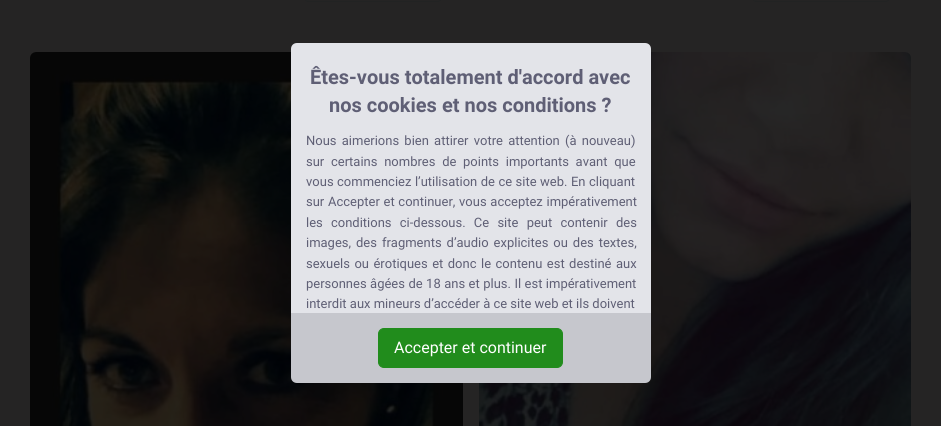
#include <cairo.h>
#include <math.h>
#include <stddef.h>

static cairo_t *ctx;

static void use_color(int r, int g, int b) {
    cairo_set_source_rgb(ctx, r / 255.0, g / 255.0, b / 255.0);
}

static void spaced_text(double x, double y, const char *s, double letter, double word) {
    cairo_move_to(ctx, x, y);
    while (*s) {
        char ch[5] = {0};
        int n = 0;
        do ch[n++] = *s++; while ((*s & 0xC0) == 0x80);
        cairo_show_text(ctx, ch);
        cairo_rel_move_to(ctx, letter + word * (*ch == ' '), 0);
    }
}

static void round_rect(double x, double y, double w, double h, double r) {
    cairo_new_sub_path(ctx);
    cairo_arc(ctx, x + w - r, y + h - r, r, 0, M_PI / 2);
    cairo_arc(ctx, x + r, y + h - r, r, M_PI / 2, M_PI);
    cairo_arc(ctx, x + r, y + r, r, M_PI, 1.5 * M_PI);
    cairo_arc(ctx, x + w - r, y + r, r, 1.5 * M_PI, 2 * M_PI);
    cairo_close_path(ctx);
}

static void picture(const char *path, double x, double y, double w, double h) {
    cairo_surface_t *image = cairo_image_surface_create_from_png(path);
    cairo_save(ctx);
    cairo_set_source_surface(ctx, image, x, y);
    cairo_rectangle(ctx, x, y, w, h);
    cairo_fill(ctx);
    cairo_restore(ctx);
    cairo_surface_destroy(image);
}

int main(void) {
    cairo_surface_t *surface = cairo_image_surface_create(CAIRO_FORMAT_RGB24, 941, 426);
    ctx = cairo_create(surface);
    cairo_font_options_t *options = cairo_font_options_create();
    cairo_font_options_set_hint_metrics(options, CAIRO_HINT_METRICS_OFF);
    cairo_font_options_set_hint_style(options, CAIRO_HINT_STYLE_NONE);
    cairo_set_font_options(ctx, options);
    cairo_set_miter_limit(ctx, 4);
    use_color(37, 36, 36);
    cairo_paint(ctx);
    round_rect(303.5, -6.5, 139, 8, 5.5);
    use_color(34, 35, 35);
    cairo_set_line_width(ctx, 1);
    cairo_stroke(ctx);
    round_rect(751.5, -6.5, 139, 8, 5.5);
    cairo_stroke(ctx);
    picture("img1.png", 30, 52, 433, 374);
    picture("img2.png", 479, 52, 432, 374);
    use_color(227, 228, 233);
    cairo_new_path(ctx);
    cairo_move_to(ctx, 297, 43);
    cairo_line_to(ctx, 645, 43);
    cairo_curve_to(ctx, 648.5, 43, 651, 45.5, 651, 49);
    cairo_line_to(ctx, 651, 313);
    cairo_line_to(ctx, 291, 313);
    cairo_line_to(ctx, 291, 49);
    cairo_curve_to(ctx, 291, 45.5, 293.5, 43, 297, 43);
    cairo_close_path(ctx);
    cairo_fill(ctx);
    cairo_select_font_face(ctx, "Roboto", CAIRO_FONT_SLANT_NORMAL, CAIRO_FONT_WEIGHT_BOLD);
    cairo_set_font_size(ctx, 20);
    use_color(95, 95, 117);
    cairo_move_to(ctx, 310, 84);
    cairo_show_text(ctx, "Êtes-vous totalement d'accord avec");
    cairo_move_to(ctx, 329, 112);
    cairo_show_text(ctx, "nos cookies et nos conditions ?");
    cairo_select_font_face(ctx, "Roboto", CAIRO_FONT_SLANT_NORMAL, CAIRO_FONT_WEIGHT_NORMAL);
    cairo_set_font_size(ctx, 13);
    spaced_text(306, 145, "Nous aimerions bien attirer votre attention (à nouveau)", 0, 2);
    spaced_text(306, 166, "sur certains nombres de points importants avant que", 0, 3.5);
    spaced_text(306, 186, "vous commenciez l’utilisation de ce site web. En cliquant", 0, 0.25);
    spaced_text(306, 206, "sur Accepter et continuer, vous acceptez impérativement", 0, 0.5);
    spaced_text(306, 227, "les conditions ci-dessous. Ce site peut contenir des", 0, 5);
    spaced_text(306, 247, "images, des fragments d’audio explicites ou des textes,", 0, 1.75);
    spaced_text(306, 268, "sexuels ou érotiques et donc le contenu est destiné aux", 0, 1.25);
    spaced_text(306, 288, "personnes âgées de 18 ans et plus. Il est impérativement", 0, 0.25);
    cairo_move_to(ctx, 306, 308);
    cairo_show_text(ctx, "interdit aux mineurs d’accéder à ce site web et ils doivent");
    use_color(198, 199, 205);
    cairo_new_path(ctx);
    cairo_move_to(ctx, 291, 313);
    cairo_line_to(ctx, 651, 313);
    cairo_line_to(ctx, 651, 377);
    cairo_curve_to(ctx, 651, 380.5, 648.5, 383, 645, 383);
    cairo_line_to(ctx, 297, 383);
    cairo_curve_to(ctx, 293.5, 383, 291, 380.5, 291, 377);
    cairo_close_path(ctx);
    cairo_fill(ctx);
    use_color(33, 140, 28);
    round_rect(378.5, 328.5, 184, 39, 5.5);
    cairo_fill_preserve(ctx);
    cairo_stroke(ctx);
    cairo_set_font_size(ctx, 16);
    use_color(255, 255, 255);
    cairo_move_to(ctx, 394, 353);
    cairo_show_text(ctx, "Accepter et continuer");
    cairo_surface_write_to_png(surface, "result.png");
    cairo_font_options_destroy(options);
    cairo_destroy(ctx);
    cairo_surface_destroy(surface);
    return 0;
}
